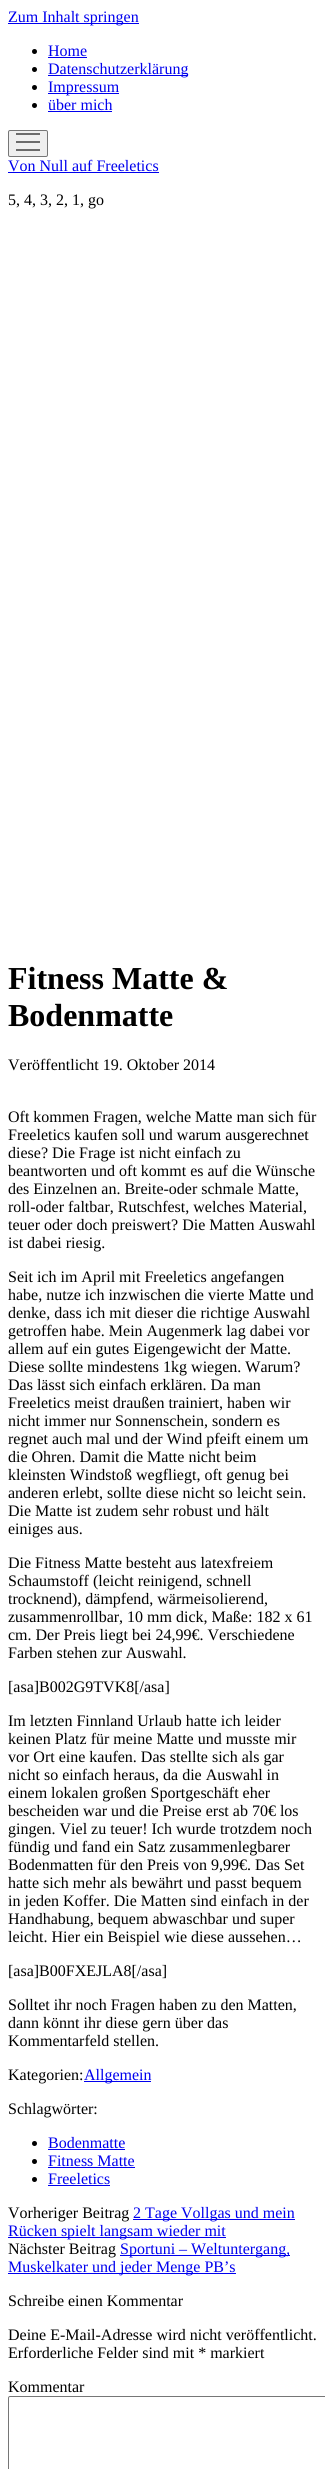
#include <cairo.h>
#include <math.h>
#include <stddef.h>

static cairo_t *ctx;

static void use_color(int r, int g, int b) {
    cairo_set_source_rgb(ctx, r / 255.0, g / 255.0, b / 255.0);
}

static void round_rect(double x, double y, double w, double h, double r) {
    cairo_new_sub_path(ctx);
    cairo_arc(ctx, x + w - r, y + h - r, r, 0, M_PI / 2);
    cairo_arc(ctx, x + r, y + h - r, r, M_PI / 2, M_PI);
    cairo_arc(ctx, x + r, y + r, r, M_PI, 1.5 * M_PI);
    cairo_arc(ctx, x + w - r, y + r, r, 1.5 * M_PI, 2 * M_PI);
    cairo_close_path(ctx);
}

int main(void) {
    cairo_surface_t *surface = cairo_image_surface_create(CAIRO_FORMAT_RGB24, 325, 2469);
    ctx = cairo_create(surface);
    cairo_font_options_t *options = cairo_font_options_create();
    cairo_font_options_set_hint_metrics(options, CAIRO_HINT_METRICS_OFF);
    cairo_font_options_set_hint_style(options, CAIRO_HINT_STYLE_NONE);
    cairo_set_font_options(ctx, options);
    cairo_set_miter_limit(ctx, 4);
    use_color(255, 255, 255);
    cairo_paint(ctx);
    use_color(0, 0, 238);
    cairo_rectangle(ctx, 8, 23, 131, 1);
    cairo_fill(ctx);
    cairo_select_font_face(ctx, "Liberation Serif", CAIRO_FONT_SLANT_NORMAL, CAIRO_FONT_WEIGHT_NORMAL);
    cairo_set_font_size(ctx, 16);
    cairo_move_to(ctx, 8, 22);
    cairo_show_text(ctx, "Zum Inhalt springen");
    use_color(0, 0, 0);
    cairo_new_path(ctx);
    cairo_arc(ctx, 34.5, 51.5, 2.5, 0, 2 * M_PI);
    cairo_fill(ctx);
    use_color(0, 0, 238);
    cairo_move_to(ctx, 48, 56);
    cairo_show_text(ctx, "Home");
    cairo_rectangle(ctx, 48, 57, 39, 1);
    cairo_fill(ctx);
    use_color(0, 0, 0);
    cairo_arc(ctx, 34.5, 69.5, 2.5, 0, 2 * M_PI);
    cairo_fill(ctx);
    use_color(0, 0, 238);
    cairo_rectangle(ctx, 48, 75, 140, 1);
    cairo_fill(ctx);
    cairo_move_to(ctx, 48, 74);
    cairo_show_text(ctx, "Datenschutzerklärung");
    use_color(0, 0, 0);
    cairo_new_path(ctx);
    cairo_arc(ctx, 34.5, 87.5, 2.5, 0, 2 * M_PI);
    cairo_fill(ctx);
    use_color(0, 0, 238);
    cairo_rectangle(ctx, 48, 93, 71, 1);
    cairo_fill(ctx);
    cairo_move_to(ctx, 48, 92);
    cairo_show_text(ctx, "Impressum");
    use_color(0, 0, 0);
    cairo_new_path(ctx);
    cairo_arc(ctx, 34.5, 105.5, 2.5, 0, 2 * M_PI);
    cairo_fill(ctx);
    use_color(0, 0, 238);
    cairo_move_to(ctx, 48, 110);
    cairo_show_text(ctx, "über mich");
    cairo_rectangle(ctx, 48, 111, 64, 1);
    cairo_fill(ctx);
    use_color(239, 239, 239);
    round_rect(8.5, 130.5, 39, 26, 1.5);
    cairo_fill_preserve(ctx);
    use_color(118, 118, 118);
    cairo_set_line_width(ctx, 1);
    cairo_stroke(ctx);
    use_color(107, 107, 107);
    cairo_rectangle(ctx, 16, 133, 24, 2);
    cairo_fill(ctx);
    cairo_rectangle(ctx, 16, 141, 24, 2);
    cairo_fill(ctx);
    cairo_rectangle(ctx, 16, 149, 24, 2);
    cairo_fill(ctx);
    use_color(0, 0, 238);
    cairo_move_to(ctx, 8, 171);
    cairo_show_text(ctx, "Von Null auf Freeletics");
    cairo_rectangle(ctx, 8, 172, 151, 1);
    cairo_fill(ctx);
    use_color(0, 0, 0);
    cairo_move_to(ctx, 8, 205);
    cairo_show_text(ctx, "5, 4, 3, 2, 1, go");
    cairo_select_font_face(ctx, "Liberation Serif", CAIRO_FONT_SLANT_NORMAL, CAIRO_FONT_WEIGHT_BOLD);
    cairo_set_font_size(ctx, 32);
    cairo_move_to(ctx, 8, 989);
    cairo_show_text(ctx, "Fitness Matte &");
    cairo_move_to(ctx, 8, 1026);
    cairo_show_text(ctx, "Bodenmatte");
    cairo_select_font_face(ctx, "Liberation Serif", CAIRO_FONT_SLANT_NORMAL, CAIRO_FONT_WEIGHT_NORMAL);
    cairo_set_font_size(ctx, 16);
    cairo_move_to(ctx, 8, 1070);
    cairo_show_text(ctx, "Veröffentlicht 19. Oktober 2014");
    cairo_move_to(ctx, 8, 1122);
    cairo_show_text(ctx, "Oft kommen Fragen, welche Matte man sich für");
    cairo_move_to(ctx, 8, 1140);
    cairo_show_text(ctx, "Freeletics kaufen soll und warum ausgerechnet");
    cairo_move_to(ctx, 8, 1158);
    cairo_show_text(ctx, "diese? Die Frage ist nicht einfach zu");
    cairo_move_to(ctx, 8, 1176);
    cairo_show_text(ctx, "beantworten und oft kommt es auf die Wünsche");
    cairo_move_to(ctx, 8, 1194);
    cairo_show_text(ctx, "des Einzelnen an. Breite-oder schmale Matte,");
    cairo_move_to(ctx, 8, 1212);
    cairo_show_text(ctx, "roll-oder faltbar, Rutschfest, welches Material,");
    cairo_move_to(ctx, 8, 1230);
    cairo_show_text(ctx, "teuer oder doch preiswert? Die Matten Auswahl");
    cairo_move_to(ctx, 8, 1248);
    cairo_show_text(ctx, "ist dabei riesig.");
    cairo_move_to(ctx, 8, 1282);
    cairo_show_text(ctx, "Seit ich im April mit Freeletics angefangen");
    cairo_move_to(ctx, 8, 1300);
    cairo_show_text(ctx, "habe, nutze ich inzwischen die vierte Matte und");
    cairo_move_to(ctx, 8, 1318);
    cairo_show_text(ctx, "denke, dass ich mit dieser die richtige Auswahl");
    cairo_move_to(ctx, 8, 1336);
    cairo_show_text(ctx, "getroffen habe. Mein Augenmerk lag dabei vor");
    cairo_move_to(ctx, 8, 1354);
    cairo_show_text(ctx, "allem auf ein gutes Eigengewicht der Matte.");
    cairo_move_to(ctx, 8, 1372);
    cairo_show_text(ctx, "Diese sollte mindestens 1kg wiegen. Warum?");
    cairo_move_to(ctx, 8, 1390);
    cairo_show_text(ctx, "Das lässt sich einfach erklären. Da man");
    cairo_move_to(ctx, 8, 1408);
    cairo_show_text(ctx, "Freeletics meist draußen trainiert, haben wir");
    cairo_move_to(ctx, 8, 1426);
    cairo_show_text(ctx, "nicht immer nur Sonnenschein, sondern es");
    cairo_move_to(ctx, 8, 1444);
    cairo_show_text(ctx, "regnet auch mal und der Wind pfeift einem um");
    cairo_move_to(ctx, 8, 1462);
    cairo_show_text(ctx, "die Ohren. Damit die Matte nicht beim");
    cairo_move_to(ctx, 8, 1480);
    cairo_show_text(ctx, "kleinsten Windstoß wegfliegt, oft genug bei");
    cairo_move_to(ctx, 8, 1498);
    cairo_show_text(ctx, "anderen erlebt, sollte diese nicht so leicht sein.");
    cairo_move_to(ctx, 8, 1516);
    cairo_show_text(ctx, "Die Matte ist zudem sehr robust und hält");
    cairo_move_to(ctx, 8, 1534);
    cairo_show_text(ctx, "einiges aus.");
    cairo_move_to(ctx, 8, 1568);
    cairo_show_text(ctx, "Die Fitness Matte besteht aus latexfreiem");
    cairo_move_to(ctx, 8, 1586);
    cairo_show_text(ctx, "Schaumstoff (leicht reinigend, schnell");
    cairo_move_to(ctx, 8, 1604);
    cairo_show_text(ctx, "trocknend), dämpfend, wärmeisolierend,");
    cairo_move_to(ctx, 8, 1622);
    cairo_show_text(ctx, "zusammenrollbar, 10 mm dick, Maße: 182 x 61");
    cairo_move_to(ctx, 8, 1640);
    cairo_show_text(ctx, "cm. Der Preis liegt bei 24,99€. Verschiedene");
    cairo_move_to(ctx, 8, 1658);
    cairo_show_text(ctx, "Farben stehen zur Auswahl.");
    cairo_move_to(ctx, 8, 1692);
    cairo_show_text(ctx, "[asa]B002G9TVK8[/asa]");
    cairo_move_to(ctx, 8, 1726);
    cairo_show_text(ctx, "Im letzten Finnland Urlaub hatte ich leider");
    cairo_move_to(ctx, 8, 1744);
    cairo_show_text(ctx, "keinen Platz für meine Matte und musste mir");
    cairo_move_to(ctx, 8, 1762);
    cairo_show_text(ctx, "vor Ort eine kaufen. Das stellte sich als gar");
    cairo_move_to(ctx, 8, 1780);
    cairo_show_text(ctx, "nicht so einfach heraus, da die Auswahl in");
    cairo_move_to(ctx, 8, 1798);
    cairo_show_text(ctx, "einem lokalen großen Sportgeschäft eher");
    cairo_move_to(ctx, 8, 1816);
    cairo_show_text(ctx, "bescheiden war und die Preise erst ab 70€ los");
    cairo_move_to(ctx, 8, 1834);
    cairo_show_text(ctx, "gingen. Viel zu teuer! Ich wurde trotzdem noch");
    cairo_move_to(ctx, 8, 1852);
    cairo_show_text(ctx, "fündig und fand ein Satz zusammenlegbarer");
    cairo_move_to(ctx, 8, 1870);
    cairo_show_text(ctx, "Bodenmatten für den Preis von 9,99€. Das Set");
    cairo_move_to(ctx, 8, 1888);
    cairo_show_text(ctx, "hatte sich mehr als bewährt und passt bequem");
    cairo_move_to(ctx, 8, 1906);
    cairo_show_text(ctx, "in jeden Koffer. Die Matten sind einfach in der");
    cairo_move_to(ctx, 8, 1924);
    cairo_show_text(ctx, "Handhabung, bequem abwaschbar und super");
    cairo_move_to(ctx, 8, 1942);
    cairo_show_text(ctx, "leicht. Hier ein Beispiel wie diese aussehen…");
    cairo_move_to(ctx, 8, 1976);
    cairo_show_text(ctx, "[asa]B00FXEJLA8[/asa]");
    cairo_move_to(ctx, 8, 2010);
    cairo_show_text(ctx, "Solltet ihr noch Fragen haben zu den Matten,");
    cairo_move_to(ctx, 8, 2028);
    cairo_show_text(ctx, "dann könnt ihr diese gern über das");
    cairo_move_to(ctx, 8, 2046);
    cairo_show_text(ctx, "Kommentarfeld stellen.");
    cairo_move_to(ctx, 8, 2080);
    cairo_show_text(ctx, "Kategorien:");
    use_color(0, 0, 238);
    cairo_rectangle(ctx, 84, 2081, 67, 1);
    cairo_fill(ctx);
    cairo_move_to(ctx, 84, 2080);
    cairo_show_text(ctx, "Allgemein");
    use_color(0, 0, 0);
    cairo_move_to(ctx, 8, 2114);
    cairo_show_text(ctx, "Schlagwörter:");
    cairo_new_path(ctx);
    cairo_arc(ctx, 34.5, 2143.5, 2.5, 0, 2 * M_PI);
    cairo_fill(ctx);
    use_color(0, 0, 238);
    cairo_move_to(ctx, 48, 2148);
    cairo_show_text(ctx, "Bodenmatte");
    cairo_rectangle(ctx, 48, 2149, 77, 1);
    cairo_fill(ctx);
    use_color(0, 0, 0);
    cairo_arc(ctx, 34.5, 2161.5, 2.5, 0, 2 * M_PI);
    cairo_fill(ctx);
    use_color(0, 0, 238);
    cairo_move_to(ctx, 48, 2166);
    cairo_show_text(ctx, "Fitness Matte");
    cairo_rectangle(ctx, 48, 2167, 87, 1);
    cairo_fill(ctx);
    use_color(0, 0, 0);
    cairo_arc(ctx, 34.5, 2179.5, 2.5, 0, 2 * M_PI);
    cairo_fill(ctx);
    use_color(0, 0, 238);
    cairo_move_to(ctx, 48, 2184);
    cairo_show_text(ctx, "Freeletics");
    cairo_rectangle(ctx, 48, 2185, 62, 1);
    cairo_fill(ctx);
    use_color(0, 0, 0);
    cairo_move_to(ctx, 8, 2218);
    cairo_show_text(ctx, "Vorheriger Beitrag");
    use_color(0, 0, 238);
    cairo_rectangle(ctx, 133, 2219, 162, 1);
    cairo_fill(ctx);
    cairo_move_to(ctx, 133, 2218);
    cairo_show_text(ctx, "2 Tage Vollgas und mein");
    cairo_rectangle(ctx, 8, 2237, 218, 1);
    cairo_fill(ctx);
    cairo_move_to(ctx, 8, 2236);
    cairo_show_text(ctx, "Rücken spielt langsam wieder mit");
    use_color(0, 0, 0);
    cairo_move_to(ctx, 8, 2254);
    cairo_show_text(ctx, "Nächster Beitrag");
    use_color(0, 0, 238);
    cairo_rectangle(ctx, 120, 2255, 170, 1);
    cairo_fill(ctx);
    cairo_move_to(ctx, 120, 2254);
    cairo_show_text(ctx, "Sportuni – Weltuntergang,");
    cairo_rectangle(ctx, 8, 2273, 228, 1);
    cairo_fill(ctx);
    cairo_move_to(ctx, 8, 2272);
    cairo_show_text(ctx, "Muskelkater und jeder Menge PB’s");
    use_color(0, 0, 0);
    cairo_move_to(ctx, 8, 2306);
    cairo_show_text(ctx, "Schreibe einen Kommentar");
    cairo_move_to(ctx, 8, 2340);
    cairo_show_text(ctx, "Deine E-Mail-Adresse wird nicht veröffentlicht.");
    cairo_move_to(ctx, 8, 2358);
    cairo_show_text(ctx, "Erforderliche Felder sind mit * markiert");
    cairo_move_to(ctx, 8, 2392);
    cairo_show_text(ctx, "Kommentar");
    round_rect(8.5, 2396.5, 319, 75, 1.5);
    use_color(118, 118, 118);
    cairo_stroke(ctx);
    cairo_surface_write_to_png(surface, "result.png");
    cairo_font_options_destroy(options);
    cairo_destroy(ctx);
    cairo_surface_destroy(surface);
    return 0;
}
